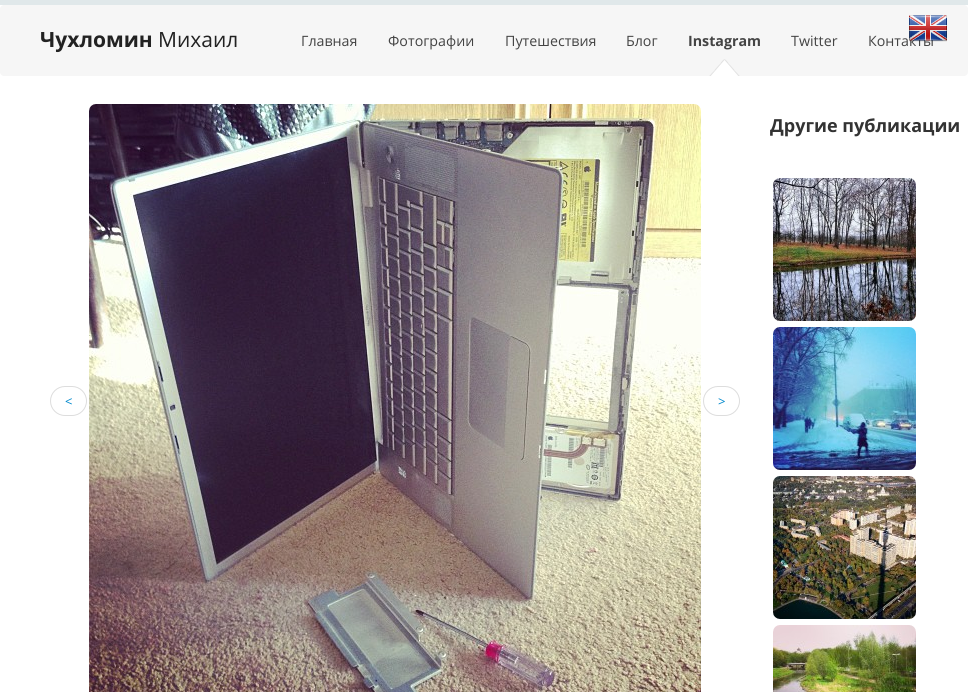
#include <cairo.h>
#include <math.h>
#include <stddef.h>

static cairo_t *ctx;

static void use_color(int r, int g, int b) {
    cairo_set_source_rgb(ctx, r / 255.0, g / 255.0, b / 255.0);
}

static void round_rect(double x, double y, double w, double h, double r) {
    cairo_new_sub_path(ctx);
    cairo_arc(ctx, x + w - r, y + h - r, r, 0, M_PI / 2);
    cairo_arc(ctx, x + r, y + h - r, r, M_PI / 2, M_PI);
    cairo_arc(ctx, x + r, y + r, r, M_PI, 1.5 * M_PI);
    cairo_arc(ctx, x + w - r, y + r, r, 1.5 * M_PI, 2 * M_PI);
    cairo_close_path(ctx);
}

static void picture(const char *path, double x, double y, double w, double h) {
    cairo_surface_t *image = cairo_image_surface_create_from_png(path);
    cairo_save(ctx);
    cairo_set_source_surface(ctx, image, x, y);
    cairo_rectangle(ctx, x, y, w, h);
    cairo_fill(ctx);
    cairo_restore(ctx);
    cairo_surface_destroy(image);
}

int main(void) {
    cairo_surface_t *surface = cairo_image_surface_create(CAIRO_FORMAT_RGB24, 968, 692);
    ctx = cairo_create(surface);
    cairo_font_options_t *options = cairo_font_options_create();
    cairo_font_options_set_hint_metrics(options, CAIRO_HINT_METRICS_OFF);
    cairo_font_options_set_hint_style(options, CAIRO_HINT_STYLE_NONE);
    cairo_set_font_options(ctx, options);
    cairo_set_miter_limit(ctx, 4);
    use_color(255, 255, 255);
    cairo_paint(ctx);
    use_color(224, 232, 234);
    cairo_rectangle(ctx, 0, 0, 968, 5);
    cairo_fill(ctx);
    use_color(246, 246, 246);
    round_rect(0, 5, 968, 71, 4);
    cairo_fill(ctx);
    cairo_select_font_face(ctx, "Open Sans", CAIRO_FONT_SLANT_NORMAL, CAIRO_FONT_WEIGHT_NORMAL);
    cairo_set_font_size(ctx, 14.25);
    use_color(68, 68, 68);
    cairo_move_to(ctx, 868, 46);
    cairo_show_text(ctx, "Контакты");
    picture("img1.png", 909, 15, 38, 27);
    cairo_select_font_face(ctx, "Open Sans", CAIRO_FONT_SLANT_NORMAL, CAIRO_FONT_WEIGHT_BOLD);
    cairo_set_font_size(ctx, 21);
    use_color(34, 34, 34);
    cairo_move_to(ctx, 40, 47);
    cairo_show_text(ctx, "Чухломин");
    cairo_select_font_face(ctx, "Open Sans", CAIRO_FONT_SLANT_NORMAL, CAIRO_FONT_WEIGHT_NORMAL);
    cairo_move_to(ctx, 158, 47);
    cairo_show_text(ctx, "Михаил");
    cairo_set_font_size(ctx, 14.25);
    use_color(68, 68, 68);
    cairo_move_to(ctx, 301, 46);
    cairo_show_text(ctx, "Главная");
    cairo_move_to(ctx, 388, 46);
    cairo_show_text(ctx, "Фотографии");
    cairo_move_to(ctx, 505, 46);
    cairo_show_text(ctx, "Путешествия");
    cairo_move_to(ctx, 626, 46);
    cairo_show_text(ctx, "Блог");
    picture("img2.png", 709, 59, 31, 17);
    cairo_select_font_face(ctx, "Open Sans", CAIRO_FONT_SLANT_NORMAL, CAIRO_FONT_WEIGHT_BOLD);
    cairo_move_to(ctx, 688, 46);
    cairo_show_text(ctx, "Instagram");
    cairo_select_font_face(ctx, "Open Sans", CAIRO_FONT_SLANT_NORMAL, CAIRO_FONT_WEIGHT_NORMAL);
    cairo_move_to(ctx, 791, 46);
    cairo_show_text(ctx, "Twitter");
    cairo_select_font_face(ctx, "Open Sans", CAIRO_FONT_SLANT_NORMAL, CAIRO_FONT_WEIGHT_BOLD);
    cairo_set_font_size(ctx, 18);
    use_color(51, 51, 51);
    cairo_move_to(ctx, 770, 132);
    cairo_show_text(ctx, "Другие публикации");
    picture("img3.png", 773, 178, 143, 143);
    picture("img4.png", 773, 327, 143, 143);
    picture("img5.png", 773, 476, 143, 143);
    picture("img6.png", 773, 625, 143, 67);
    round_rect(50.5, 386.5, 36, 29, 14.5);
    use_color(221, 221, 221);
    cairo_set_line_width(ctx, 1);
    cairo_stroke(ctx);
    cairo_select_font_face(ctx, "Open Sans", CAIRO_FONT_SLANT_NORMAL, CAIRO_FONT_WEIGHT_NORMAL);
    cairo_set_font_size(ctx, 13);
    use_color(0, 136, 204);
    cairo_move_to(ctx, 65, 406);
    cairo_show_text(ctx, "<");
    picture("img7.png", 89, 104, 612, 588);
    round_rect(703.5, 386.5, 36, 29, 14.5);
    use_color(221, 221, 221);
    cairo_stroke(ctx);
    use_color(0, 136, 204);
    cairo_move_to(ctx, 718, 406);
    cairo_show_text(ctx, ">");
    cairo_surface_write_to_png(surface, "result.png");
    cairo_font_options_destroy(options);
    cairo_destroy(ctx);
    cairo_surface_destroy(surface);
    return 0;
}
